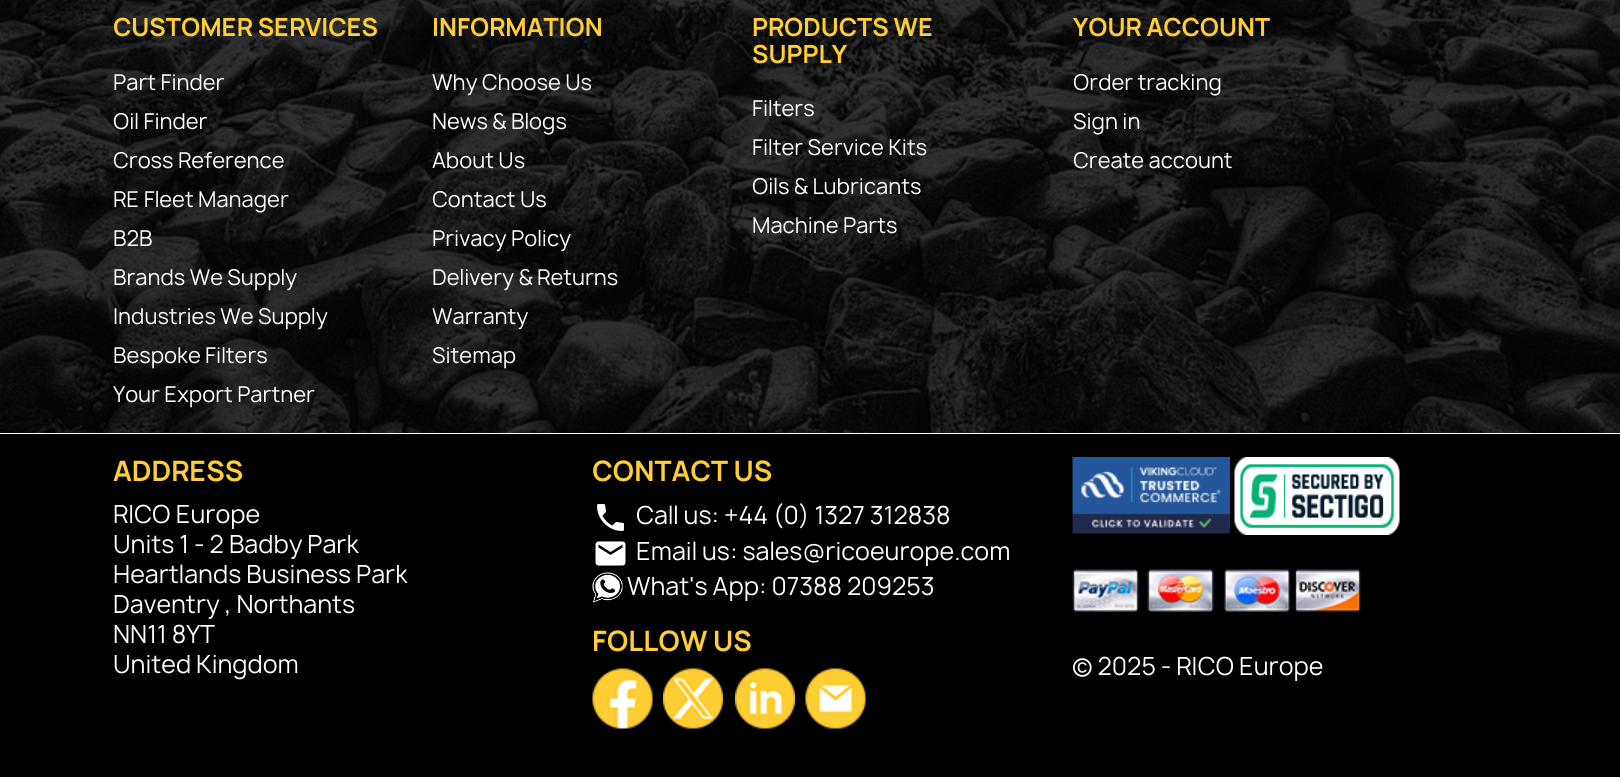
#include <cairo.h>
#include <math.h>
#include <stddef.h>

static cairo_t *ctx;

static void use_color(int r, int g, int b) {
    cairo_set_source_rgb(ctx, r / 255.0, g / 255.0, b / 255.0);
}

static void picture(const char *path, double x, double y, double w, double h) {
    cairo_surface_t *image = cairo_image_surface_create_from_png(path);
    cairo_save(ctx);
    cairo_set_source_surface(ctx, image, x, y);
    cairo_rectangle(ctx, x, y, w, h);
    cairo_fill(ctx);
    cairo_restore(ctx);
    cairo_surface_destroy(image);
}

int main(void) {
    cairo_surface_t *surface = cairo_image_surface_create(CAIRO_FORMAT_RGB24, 1620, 777);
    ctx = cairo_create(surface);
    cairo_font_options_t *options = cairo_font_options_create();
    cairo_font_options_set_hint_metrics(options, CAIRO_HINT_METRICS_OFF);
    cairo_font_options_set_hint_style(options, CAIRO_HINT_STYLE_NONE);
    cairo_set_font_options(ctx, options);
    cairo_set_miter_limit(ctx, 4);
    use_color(255, 255, 255);
    cairo_paint(ctx);
    picture("img1.png", 0, 0, 1620, 433);
    cairo_select_font_face(ctx, "Manrope", CAIRO_FONT_SLANT_NORMAL, CAIRO_FONT_WEIGHT_BOLD);
    cairo_set_font_size(ctx, 24);
    use_color(255, 206, 52);
    cairo_move_to(ctx, 113, 36);
    cairo_show_text(ctx, "CUSTOMER SERVICES");
    cairo_select_font_face(ctx, "Manrope", CAIRO_FONT_SLANT_NORMAL, CAIRO_FONT_WEIGHT_NORMAL);
    cairo_set_font_size(ctx, 21);
    use_color(255, 255, 255);
    cairo_move_to(ctx, 113, 90);
    cairo_show_text(ctx, "Part Finder");
    cairo_move_to(ctx, 113, 129);
    cairo_show_text(ctx, "Oil Finder");
    cairo_move_to(ctx, 113, 168);
    cairo_show_text(ctx, "Cross Reference");
    cairo_move_to(ctx, 113, 207);
    cairo_show_text(ctx, "RE Fleet Manager");
    cairo_move_to(ctx, 113, 246);
    cairo_show_text(ctx, "B2B");
    cairo_move_to(ctx, 113, 285);
    cairo_show_text(ctx, "Brands We Supply");
    cairo_move_to(ctx, 113, 324);
    cairo_show_text(ctx, "Industries We Supply");
    cairo_move_to(ctx, 113, 363);
    cairo_show_text(ctx, "Bespoke Filters");
    cairo_move_to(ctx, 113, 402);
    cairo_show_text(ctx, "Your Export Partner");
    cairo_select_font_face(ctx, "Manrope", CAIRO_FONT_SLANT_NORMAL, CAIRO_FONT_WEIGHT_BOLD);
    cairo_set_font_size(ctx, 24);
    use_color(255, 206, 52);
    cairo_move_to(ctx, 432, 36);
    cairo_show_text(ctx, "INFORMATION");
    cairo_select_font_face(ctx, "Manrope", CAIRO_FONT_SLANT_NORMAL, CAIRO_FONT_WEIGHT_NORMAL);
    cairo_set_font_size(ctx, 21);
    use_color(255, 255, 255);
    cairo_move_to(ctx, 432, 90);
    cairo_show_text(ctx, "Why Choose Us");
    cairo_move_to(ctx, 432, 129);
    cairo_show_text(ctx, "News & Blogs");
    cairo_move_to(ctx, 432, 168);
    cairo_show_text(ctx, "About Us");
    cairo_move_to(ctx, 432, 207);
    cairo_show_text(ctx, "Contact Us");
    cairo_move_to(ctx, 432, 246);
    cairo_show_text(ctx, "Privacy Policy");
    cairo_move_to(ctx, 432, 285);
    cairo_show_text(ctx, "Delivery & Returns");
    cairo_move_to(ctx, 432, 324);
    cairo_show_text(ctx, "Warranty");
    cairo_move_to(ctx, 432, 363);
    cairo_show_text(ctx, "Sitemap");
    cairo_select_font_face(ctx, "Manrope", CAIRO_FONT_SLANT_NORMAL, CAIRO_FONT_WEIGHT_BOLD);
    cairo_set_font_size(ctx, 24);
    use_color(255, 206, 52);
    cairo_move_to(ctx, 752, 36);
    cairo_show_text(ctx, "PRODUCTS WE");
    cairo_move_to(ctx, 752, 63);
    cairo_show_text(ctx, "SUPPLY");
    cairo_select_font_face(ctx, "Manrope", CAIRO_FONT_SLANT_NORMAL, CAIRO_FONT_WEIGHT_NORMAL);
    cairo_set_font_size(ctx, 21);
    use_color(255, 255, 255);
    cairo_move_to(ctx, 752, 116);
    cairo_show_text(ctx, "Filters");
    cairo_move_to(ctx, 752, 155);
    cairo_show_text(ctx, "Filter Service Kits");
    cairo_move_to(ctx, 752, 194);
    cairo_show_text(ctx, "Oils & Lubricants");
    cairo_move_to(ctx, 752, 233);
    cairo_show_text(ctx, "Machine Parts");
    cairo_select_font_face(ctx, "Manrope", CAIRO_FONT_SLANT_NORMAL, CAIRO_FONT_WEIGHT_BOLD);
    cairo_set_font_size(ctx, 24);
    use_color(255, 206, 52);
    cairo_move_to(ctx, 1073, 36);
    cairo_show_text(ctx, "YOUR ACCOUNT");
    cairo_select_font_face(ctx, "Manrope", CAIRO_FONT_SLANT_NORMAL, CAIRO_FONT_WEIGHT_NORMAL);
    cairo_set_font_size(ctx, 21);
    use_color(255, 255, 255);
    cairo_move_to(ctx, 1073, 90);
    cairo_show_text(ctx, "Order tracking");
    cairo_move_to(ctx, 1073, 129);
    cairo_show_text(ctx, "Sign in");
    cairo_move_to(ctx, 1073, 168);
    cairo_show_text(ctx, "Create account");
    use_color(0, 0, 0);
    cairo_rectangle(ctx, 0, 434, 1620, 343);
    cairo_fill(ctx);
    cairo_select_font_face(ctx, "Manrope", CAIRO_FONT_SLANT_NORMAL, CAIRO_FONT_WEIGHT_BOLD);
    cairo_set_font_size(ctx, 27);
    use_color(255, 206, 52);
    cairo_move_to(ctx, 113, 481);
    cairo_show_text(ctx, "ADDRESS");
    cairo_select_font_face(ctx, "Manrope", CAIRO_FONT_SLANT_NORMAL, CAIRO_FONT_WEIGHT_NORMAL);
    cairo_set_font_size(ctx, 24);
    use_color(255, 255, 255);
    cairo_move_to(ctx, 113, 523);
    cairo_show_text(ctx, "RICO Europe");
    cairo_move_to(ctx, 113, 553);
    cairo_show_text(ctx, "Units 1 - 2 Badby Park");
    cairo_move_to(ctx, 113, 583);
    cairo_show_text(ctx, "Heartlands Business Park");
    cairo_move_to(ctx, 113, 613);
    cairo_show_text(ctx, "Daventry , Northants");
    cairo_move_to(ctx, 113, 643);
    cairo_show_text(ctx, "NN11 8YT");
    cairo_move_to(ctx, 113, 673);
    cairo_show_text(ctx, "United Kingdom");
    cairo_select_font_face(ctx, "Manrope", CAIRO_FONT_SLANT_NORMAL, CAIRO_FONT_WEIGHT_BOLD);
    cairo_set_font_size(ctx, 27);
    use_color(255, 206, 52);
    cairo_move_to(ctx, 592, 481);
    cairo_show_text(ctx, "CONTACT US");
    picture("img2.png", 597, 504, 27, 27);
    cairo_select_font_face(ctx, "Manrope", CAIRO_FONT_SLANT_NORMAL, CAIRO_FONT_WEIGHT_NORMAL);
    cairo_set_font_size(ctx, 24);
    use_color(255, 255, 255);
    cairo_move_to(ctx, 636, 524);
    cairo_show_text(ctx, "Call us: +44 (0) 1327 312838");
    picture("img3.png", 595, 541, 31, 25);
    cairo_move_to(ctx, 636, 560);
    cairo_show_text(ctx, "Email us: sales@ricoeurope.com");
    picture("img4.png", 592, 572, 31, 31);
    cairo_move_to(ctx, 627, 595);
    cairo_show_text(ctx, "What's App: 07388 209253");
    cairo_select_font_face(ctx, "Manrope", CAIRO_FONT_SLANT_NORMAL, CAIRO_FONT_WEIGHT_BOLD);
    cairo_set_font_size(ctx, 27);
    use_color(255, 206, 52);
    cairo_move_to(ctx, 592, 651);
    cairo_show_text(ctx, "FOLLOW US");
    picture("img5.png", 592, 668, 61, 61);
    picture("img6.png", 663, 668, 60, 61);
    picture("img7.png", 735, 668, 60, 61);
    picture("img8.png", 805, 668, 61, 61);
    picture("img9.png", 1072, 457, 158, 77);
    picture("img10.png", 1234, 457, 166, 78);
    picture("img11.png", 1072, 569, 289, 43);
    cairo_select_font_face(ctx, "Manrope", CAIRO_FONT_SLANT_NORMAL, CAIRO_FONT_WEIGHT_NORMAL);
    cairo_set_font_size(ctx, 24);
    use_color(255, 255, 255);
    cairo_move_to(ctx, 1072, 675);
    cairo_show_text(ctx, "© 2025 - RICO Europe");
    cairo_surface_write_to_png(surface, "result.png");
    cairo_font_options_destroy(options);
    cairo_destroy(ctx);
    cairo_surface_destroy(surface);
    return 0;
}
